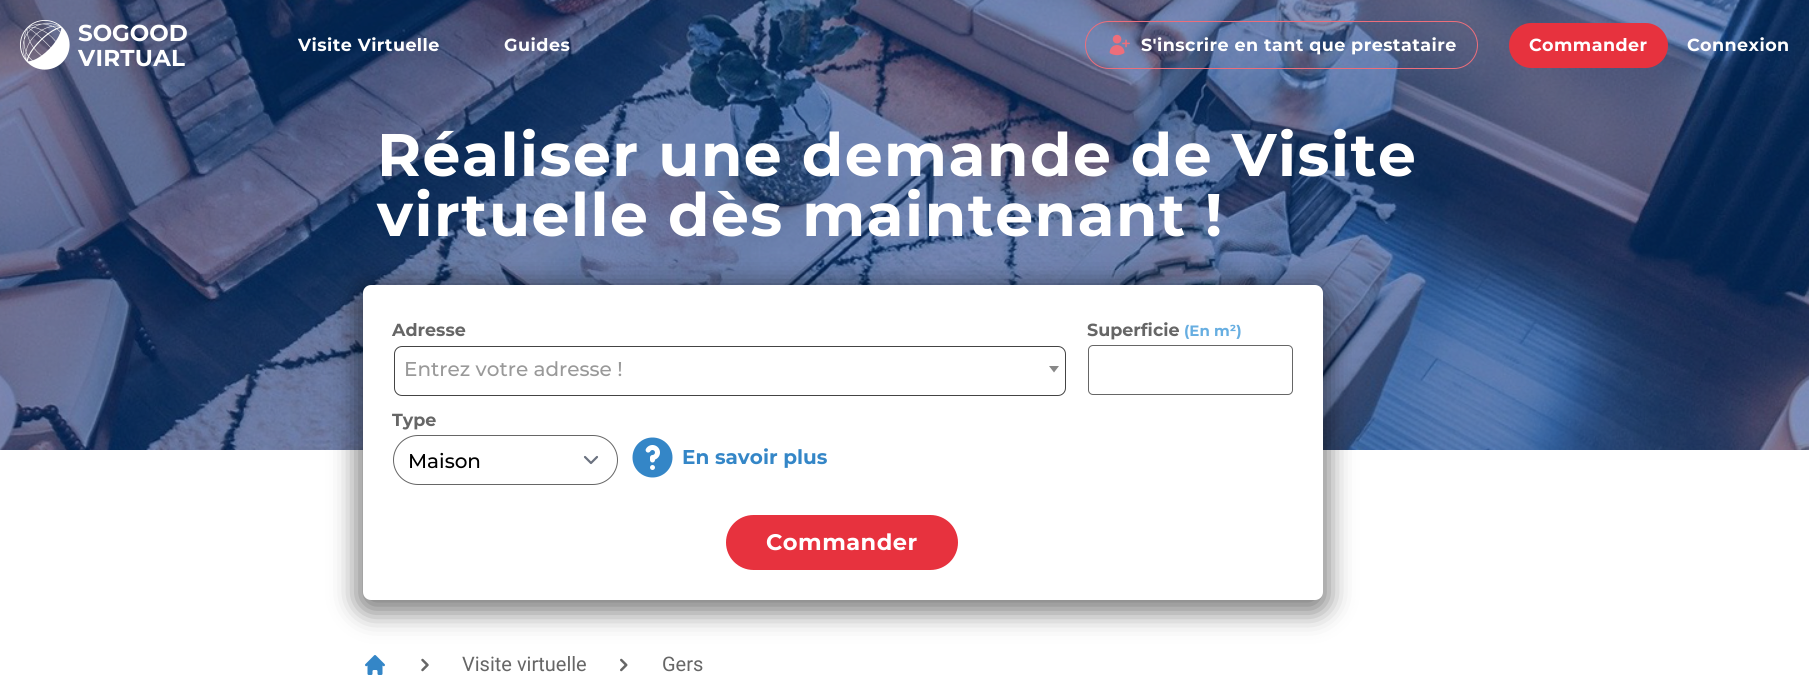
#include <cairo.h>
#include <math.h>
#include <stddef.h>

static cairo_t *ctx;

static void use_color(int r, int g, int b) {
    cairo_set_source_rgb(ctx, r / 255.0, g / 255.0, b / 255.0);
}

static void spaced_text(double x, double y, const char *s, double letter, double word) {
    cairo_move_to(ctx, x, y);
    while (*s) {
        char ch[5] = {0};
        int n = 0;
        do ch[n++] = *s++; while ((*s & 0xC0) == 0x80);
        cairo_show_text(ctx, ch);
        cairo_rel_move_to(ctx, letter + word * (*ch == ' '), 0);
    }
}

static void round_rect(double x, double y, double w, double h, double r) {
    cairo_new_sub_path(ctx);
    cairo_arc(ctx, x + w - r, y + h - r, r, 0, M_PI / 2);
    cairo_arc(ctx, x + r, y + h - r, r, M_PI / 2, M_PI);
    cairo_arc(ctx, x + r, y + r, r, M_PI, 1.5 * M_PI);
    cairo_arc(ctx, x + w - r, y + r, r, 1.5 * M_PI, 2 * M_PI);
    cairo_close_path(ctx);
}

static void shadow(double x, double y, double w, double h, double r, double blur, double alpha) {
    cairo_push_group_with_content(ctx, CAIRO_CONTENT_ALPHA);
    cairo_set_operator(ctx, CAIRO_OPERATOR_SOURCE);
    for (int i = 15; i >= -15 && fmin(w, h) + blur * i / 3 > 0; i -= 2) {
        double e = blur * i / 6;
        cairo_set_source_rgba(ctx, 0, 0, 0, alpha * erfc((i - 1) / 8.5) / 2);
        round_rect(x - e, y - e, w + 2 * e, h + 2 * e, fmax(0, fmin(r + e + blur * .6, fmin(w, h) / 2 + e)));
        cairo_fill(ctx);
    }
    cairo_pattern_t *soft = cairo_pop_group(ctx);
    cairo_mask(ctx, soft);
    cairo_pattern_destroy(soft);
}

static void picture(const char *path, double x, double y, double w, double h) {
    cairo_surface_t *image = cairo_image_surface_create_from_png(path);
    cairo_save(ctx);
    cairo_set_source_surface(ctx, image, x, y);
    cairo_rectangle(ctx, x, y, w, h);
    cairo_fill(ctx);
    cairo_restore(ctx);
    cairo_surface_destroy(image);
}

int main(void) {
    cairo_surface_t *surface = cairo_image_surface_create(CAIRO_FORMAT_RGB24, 1809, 694);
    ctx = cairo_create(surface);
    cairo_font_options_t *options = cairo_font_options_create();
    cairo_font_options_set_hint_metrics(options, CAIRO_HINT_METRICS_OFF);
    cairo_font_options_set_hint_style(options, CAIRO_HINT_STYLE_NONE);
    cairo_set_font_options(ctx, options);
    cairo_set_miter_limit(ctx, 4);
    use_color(255, 255, 255);
    cairo_paint(ctx);
    picture("img3.png", 0, 0, 1809, 450);
    picture("img1.png", 20, 20, 50, 50);
    cairo_select_font_face(ctx, "Montserrat", CAIRO_FONT_SLANT_NORMAL, CAIRO_FONT_WEIGHT_BOLD);
    cairo_set_font_size(ctx, 23);
    use_color(255, 255, 255);
    cairo_move_to(ctx, 78, 41);
    cairo_show_text(ctx, "SOGOOD");
    spaced_text(78, 66, "VIRTUAL", 0.25, 0);
    cairo_set_font_size(ctx, 17.5);
    spaced_text(298, 51, "Visite Virtuelle", 0.45, 0);
    spaced_text(504, 51, "Guides", 0.5, 0);
    round_rect(1085.5, 21.5, 392, 47, 23.5);
    use_color(237, 110, 123);
    cairo_set_line_width(ctx, 1);
    cairo_stroke(ctx);
    picture("img2.png", 1109, 34, 21, 22);
    use_color(255, 255, 255);
    spaced_text(1141, 51, "S'inscrire en tant que prestataire", 0.45, 0);
    use_color(231, 50, 62);
    round_rect(1509, 23, 159, 45, 22.5);
    cairo_fill(ctx);
    use_color(255, 255, 255);
    spaced_text(1529, 51, "Commander", 0.45, 0);
    spaced_text(1687, 51, "Connexion", 0.45, 0);
    cairo_set_font_size(ctx, 60);
    spaced_text(377, 176, "Réaliser une demande de Visite", 1.5, 0);
    spaced_text(377, 236, "virtuelle dès maintenant !", 1.5, 0);
    use_color(0, 0, 0);
    shadow(356, 285, 973, 328, 14, 12.5, 0.5);
    use_color(255, 255, 255);
    round_rect(363, 285, 960, 315, 8);
    cairo_fill(ctx);
    cairo_set_font_size(ctx, 17.5);
    use_color(102, 102, 102);
    cairo_move_to(ctx, 392, 336);
    cairo_show_text(ctx, "Adresse");
    round_rect(394.5, 346.5, 671, 49, 7.5);
    use_color(68, 68, 68);
    cairo_stroke(ctx);
    cairo_select_font_face(ctx, "Montserrat Medium", CAIRO_FONT_SLANT_NORMAL, CAIRO_FONT_WEIGHT_NORMAL);
    cairo_set_font_size(ctx, 20);
    use_color(153, 153, 153);
    cairo_move_to(ctx, 404, 376);
    cairo_show_text(ctx, "Entrez votre adresse !");
    use_color(136, 136, 136);
    cairo_new_path(ctx);
    cairo_move_to(ctx, 1049, 366);
    cairo_line_to(ctx, 1059, 366);
    cairo_line_to(ctx, 1054, 372.5);
    cairo_close_path(ctx);
    cairo_fill(ctx);
    cairo_select_font_face(ctx, "Montserrat", CAIRO_FONT_SLANT_NORMAL, CAIRO_FONT_WEIGHT_BOLD);
    cairo_set_font_size(ctx, 17.5);
    use_color(102, 102, 102);
    cairo_move_to(ctx, 1087, 336);
    cairo_show_text(ctx, "Superficie");
    cairo_set_font_size(ctx, 15);
    use_color(103, 174, 225);
    cairo_move_to(ctx, 1184, 336);
    cairo_show_text(ctx, "(En m²)");
    round_rect(1088.5, 345.5, 204, 49, 4.5);
    use_color(102, 102, 102);
    cairo_stroke(ctx);
    cairo_set_font_size(ctx, 17.5);
    cairo_move_to(ctx, 392, 426);
    cairo_show_text(ctx, "Type");
    cairo_new_path(ctx);
    cairo_move_to(ctx, 585, 457);
    cairo_line_to(ctx, 591, 463);
    cairo_line_to(ctx, 597, 457);
    use_color(107, 114, 128);
    cairo_set_line_width(ctx, 2.2);
    cairo_set_line_cap(ctx, CAIRO_LINE_CAP_ROUND);
    cairo_set_line_join(ctx, CAIRO_LINE_JOIN_ROUND);
    cairo_stroke(ctx);
    round_rect(393.5, 435.5, 224, 49, 24.5);
    use_color(102, 102, 102);
    cairo_set_line_width(ctx, 1);
    cairo_set_line_cap(ctx, CAIRO_LINE_CAP_BUTT);
    cairo_set_line_join(ctx, CAIRO_LINE_JOIN_MITER);
    cairo_stroke(ctx);
    cairo_select_font_face(ctx, "Montserrat Medium", CAIRO_FONT_SLANT_NORMAL, CAIRO_FONT_WEIGHT_NORMAL);
    cairo_set_font_size(ctx, 20);
    use_color(0, 0, 0);
    cairo_move_to(ctx, 408, 468);
    cairo_show_text(ctx, "Maison");
    picture("img4.png", 632, 437, 41, 41);
    cairo_select_font_face(ctx, "Montserrat", CAIRO_FONT_SLANT_NORMAL, CAIRO_FONT_WEIGHT_BOLD);
    use_color(52, 134, 199);
    cairo_move_to(ctx, 682, 464);
    cairo_show_text(ctx, "En savoir plus");
    use_color(231, 50, 62);
    round_rect(726, 515, 232, 55, 27.5);
    cairo_fill(ctx);
    cairo_set_font_size(ctx, 22.5);
    use_color(255, 255, 255);
    spaced_text(766, 550, "Commander", 0.5, 0);
    picture("img5.png", 365, 655, 20, 20);
    picture("img6.png", 421, 658, 8, 14);
    cairo_select_font_face(ctx, "Roboto", CAIRO_FONT_SLANT_NORMAL, CAIRO_FONT_WEIGHT_NORMAL);
    cairo_set_font_size(ctx, 20);
    use_color(102, 102, 102);
    cairo_move_to(ctx, 462, 671);
    cairo_show_text(ctx, "Visite virtuelle");
    picture("img7.png", 620, 658, 8, 14);
    cairo_move_to(ctx, 662, 671);
    cairo_show_text(ctx, "Gers");
    cairo_surface_write_to_png(surface, "result.png");
    cairo_font_options_destroy(options);
    cairo_destroy(ctx);
    cairo_surface_destroy(surface);
    return 0;
}
